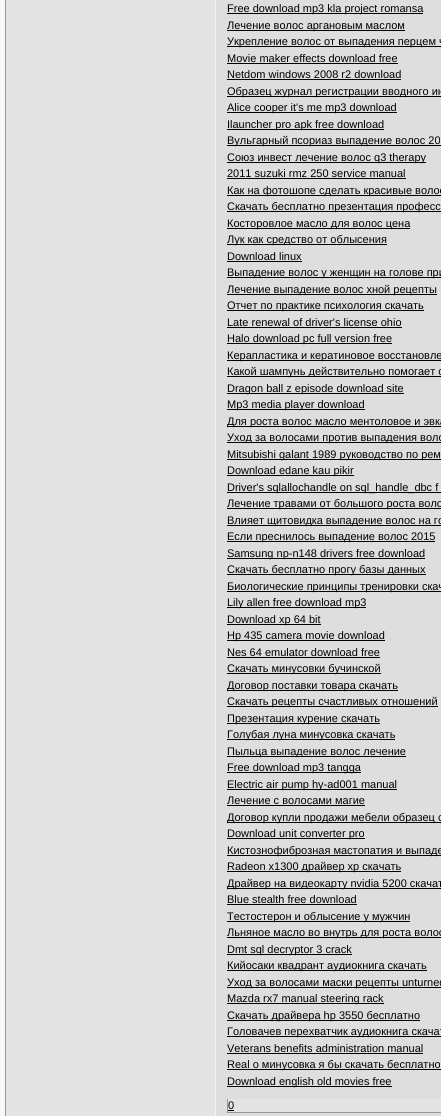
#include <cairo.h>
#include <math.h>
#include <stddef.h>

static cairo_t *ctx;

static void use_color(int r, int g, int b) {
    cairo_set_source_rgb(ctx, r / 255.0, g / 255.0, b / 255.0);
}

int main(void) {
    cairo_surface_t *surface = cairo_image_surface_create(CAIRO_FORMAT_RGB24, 441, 1116);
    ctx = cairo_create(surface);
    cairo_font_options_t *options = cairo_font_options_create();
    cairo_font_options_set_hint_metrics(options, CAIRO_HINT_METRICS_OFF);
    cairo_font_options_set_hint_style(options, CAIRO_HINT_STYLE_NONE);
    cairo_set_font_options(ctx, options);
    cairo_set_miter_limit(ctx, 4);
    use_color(248, 248, 248);
    cairo_paint(ctx);
    use_color(228, 228, 228);
    cairo_rectangle(ctx, 6, 0, 209, 1116);
    cairo_fill(ctx);
    use_color(150, 150, 150);
    cairo_rectangle(ctx, 5, 0, 1, 1116);
    cairo_fill(ctx);
    use_color(222, 222, 223);
    cairo_rectangle(ctx, 216, 0, 225, 1116);
    cairo_fill(ctx);
    use_color(243, 243, 243);
    cairo_rectangle(ctx, 215, 0, 1, 1116);
    cairo_fill(ctx);
    use_color(0, 0, 0);
    cairo_rectangle(ctx, 227, 13, 196, 1);
    cairo_fill(ctx);
    cairo_select_font_face(ctx, "Liberation Sans", CAIRO_FONT_SLANT_NORMAL, CAIRO_FONT_WEIGHT_NORMAL);
    cairo_set_font_size(ctx, 11);
    cairo_move_to(ctx, 227, 12);
    cairo_show_text(ctx, "Free download mp3 kla project romansa");
    cairo_rectangle(ctx, 227, 30, 178, 1);
    cairo_fill(ctx);
    cairo_move_to(ctx, 227, 29);
    cairo_show_text(ctx, "Лечение волос аргановым маслом");
    cairo_rectangle(ctx, 227, 46, 214, 1);
    cairo_fill(ctx);
    cairo_move_to(ctx, 227, 45);
    cairo_show_text(ctx, "Укрепление волос от выпадения перцем ч");
    cairo_move_to(ctx, 227, 62);
    cairo_show_text(ctx, "Movie maker effects download free");
    cairo_rectangle(ctx, 227, 63, 171, 1);
    cairo_fill(ctx);
    cairo_move_to(ctx, 227, 78);
    cairo_show_text(ctx, "Netdom windows 2008 r2 download");
    cairo_rectangle(ctx, 227, 79, 174, 1);
    cairo_fill(ctx);
    cairo_rectangle(ctx, 227, 96, 214, 1);
    cairo_fill(ctx);
    cairo_move_to(ctx, 227, 95);
    cairo_show_text(ctx, "Образец журнал регистрации вводного ин");
    cairo_rectangle(ctx, 227, 112, 170, 1);
    cairo_fill(ctx);
    cairo_move_to(ctx, 227, 111);
    cairo_show_text(ctx, "Alice cooper it's me mp3 download");
    cairo_rectangle(ctx, 227, 129, 157, 1);
    cairo_fill(ctx);
    cairo_move_to(ctx, 227, 128);
    cairo_show_text(ctx, "Ilauncher pro apk free download");
    cairo_rectangle(ctx, 227, 145, 214, 1);
    cairo_fill(ctx);
    cairo_move_to(ctx, 227, 144);
    cairo_show_text(ctx, "Вульгарный псориаз выпадение волос 20");
    cairo_rectangle(ctx, 227, 162, 199, 1);
    cairo_fill(ctx);
    cairo_move_to(ctx, 227, 161);
    cairo_show_text(ctx, "Союз инвест лечение волос q3 therapy");
    cairo_move_to(ctx, 227, 177);
    cairo_show_text(ctx, "2011 suzuki rmz 250 service manual");
    cairo_rectangle(ctx, 227, 178, 179, 1);
    cairo_fill(ctx);
    cairo_rectangle(ctx, 227, 195, 214, 1);
    cairo_fill(ctx);
    cairo_move_to(ctx, 227, 194);
    cairo_show_text(ctx, "Как на фотошопе сделать красивые волос");
    cairo_rectangle(ctx, 227, 211, 214, 1);
    cairo_fill(ctx);
    cairo_move_to(ctx, 227, 210);
    cairo_show_text(ctx, "Скачать бесплатно презентация професс");
    cairo_rectangle(ctx, 227, 228, 183, 1);
    cairo_fill(ctx);
    cairo_move_to(ctx, 227, 227);
    cairo_show_text(ctx, "Косторовлое масло для волос цена");
    cairo_rectangle(ctx, 227, 244, 160, 1);
    cairo_fill(ctx);
    cairo_move_to(ctx, 227, 243);
    cairo_show_text(ctx, "Лук как средство от облысения");
    cairo_move_to(ctx, 227, 260);
    cairo_show_text(ctx, "Download linux");
    cairo_rectangle(ctx, 227, 261, 75, 1);
    cairo_fill(ctx);
    cairo_rectangle(ctx, 227, 277, 214, 1);
    cairo_fill(ctx);
    cairo_move_to(ctx, 227, 276);
    cairo_show_text(ctx, "Выпадение волос у женщин на голове при");
    cairo_rectangle(ctx, 227, 294, 210, 1);
    cairo_fill(ctx);
    cairo_move_to(ctx, 227, 293);
    cairo_show_text(ctx, "Лечение выпадение волос хной рецепты");
    cairo_rectangle(ctx, 227, 310, 197, 1);
    cairo_fill(ctx);
    cairo_move_to(ctx, 227, 309);
    cairo_show_text(ctx, "Отчет по практике психология скачать");
    cairo_move_to(ctx, 227, 326);
    cairo_show_text(ctx, "Late renewal of driver's license ohio");
    cairo_rectangle(ctx, 227, 327, 175, 1);
    cairo_fill(ctx);
    cairo_rectangle(ctx, 227, 343, 165, 1);
    cairo_fill(ctx);
    cairo_move_to(ctx, 227, 342);
    cairo_show_text(ctx, "Halo download pc full version free");
    cairo_rectangle(ctx, 227, 360, 214, 1);
    cairo_fill(ctx);
    cairo_move_to(ctx, 227, 359);
    cairo_show_text(ctx, "Керапластика и кератиновое восстановле");
    cairo_rectangle(ctx, 227, 376, 214, 1);
    cairo_fill(ctx);
    cairo_move_to(ctx, 227, 375);
    cairo_show_text(ctx, "Какой шампунь действительно помогает о");
    cairo_rectangle(ctx, 227, 393, 177, 1);
    cairo_fill(ctx);
    cairo_move_to(ctx, 227, 392);
    cairo_show_text(ctx, "Dragon ball z episode download site");
    cairo_rectangle(ctx, 227, 409, 138, 1);
    cairo_fill(ctx);
    cairo_move_to(ctx, 227, 408);
    cairo_show_text(ctx, "Mp3 media player download");
    cairo_rectangle(ctx, 227, 426, 214, 1);
    cairo_fill(ctx);
    cairo_move_to(ctx, 227, 425);
    cairo_show_text(ctx, "Для роста волос масло ментоловое и эвка");
    cairo_rectangle(ctx, 227, 442, 214, 1);
    cairo_fill(ctx);
    cairo_move_to(ctx, 227, 441);
    cairo_show_text(ctx, "Уход за волосами против выпадения воло");
    cairo_rectangle(ctx, 227, 459, 214, 1);
    cairo_fill(ctx);
    cairo_move_to(ctx, 227, 458);
    cairo_show_text(ctx, "Mitsubishi galant 1989 руководство по рем");
    cairo_rectangle(ctx, 227, 475, 127, 1);
    cairo_fill(ctx);
    cairo_move_to(ctx, 227, 474);
    cairo_show_text(ctx, "Download edane kau pikir");
    cairo_rectangle(ctx, 227, 492, 214, 1);
    cairo_fill(ctx);
    cairo_move_to(ctx, 227, 491);
    cairo_show_text(ctx, "Driver's sqlallochandle on sql_handle_dbc f");
    cairo_rectangle(ctx, 227, 508, 214, 1);
    cairo_fill(ctx);
    cairo_move_to(ctx, 227, 507);
    cairo_show_text(ctx, "Лечение травами от большого роста воло");
    cairo_rectangle(ctx, 227, 525, 214, 1);
    cairo_fill(ctx);
    cairo_move_to(ctx, 227, 524);
    cairo_show_text(ctx, "Влияет щитовидка выпадение волос на го");
    cairo_rectangle(ctx, 227, 541, 208, 1);
    cairo_fill(ctx);
    cairo_move_to(ctx, 227, 540);
    cairo_show_text(ctx, "Если преснилось выпадение волос 2015");
    cairo_rectangle(ctx, 227, 558, 198, 1);
    cairo_fill(ctx);
    cairo_move_to(ctx, 227, 557);
    cairo_show_text(ctx, "Samsung np-n148 drivers free download");
    cairo_rectangle(ctx, 227, 574, 199, 1);
    cairo_fill(ctx);
    cairo_move_to(ctx, 227, 573);
    cairo_show_text(ctx, "Скачать бесплатно прогу базы данных");
    cairo_rectangle(ctx, 227, 591, 214, 1);
    cairo_fill(ctx);
    cairo_move_to(ctx, 227, 590);
    cairo_show_text(ctx, "Биологические принципы тренировки скач");
    cairo_rectangle(ctx, 227, 607, 139, 1);
    cairo_fill(ctx);
    cairo_move_to(ctx, 227, 606);
    cairo_show_text(ctx, "Lily allen free download mp3");
    cairo_rectangle(ctx, 227, 624, 94, 1);
    cairo_fill(ctx);
    cairo_move_to(ctx, 227, 623);
    cairo_show_text(ctx, "Download xp 64 bit");
    cairo_rectangle(ctx, 227, 640, 158, 1);
    cairo_fill(ctx);
    cairo_move_to(ctx, 227, 639);
    cairo_show_text(ctx, "Hp 435 camera movie download");
    cairo_move_to(ctx, 227, 656);
    cairo_show_text(ctx, "Nes 64 emulator download free");
    cairo_rectangle(ctx, 227, 657, 153, 1);
    cairo_fill(ctx);
    cairo_rectangle(ctx, 227, 673, 154, 1);
    cairo_fill(ctx);
    cairo_move_to(ctx, 227, 672);
    cairo_show_text(ctx, "Скачать минусовки бучинской");
    cairo_rectangle(ctx, 227, 690, 171, 1);
    cairo_fill(ctx);
    cairo_move_to(ctx, 227, 689);
    cairo_show_text(ctx, "Договор поставки товара скачать");
    cairo_rectangle(ctx, 227, 706, 211, 1);
    cairo_fill(ctx);
    cairo_move_to(ctx, 227, 705);
    cairo_show_text(ctx, "Скачать рецепты счастливых отношений");
    cairo_rectangle(ctx, 227, 723, 153, 1);
    cairo_fill(ctx);
    cairo_move_to(ctx, 227, 722);
    cairo_show_text(ctx, "Презентация курение скачать");
    cairo_rectangle(ctx, 227, 739, 168, 1);
    cairo_fill(ctx);
    cairo_move_to(ctx, 227, 738);
    cairo_show_text(ctx, "Голубая луна минусовка скачать");
    cairo_rectangle(ctx, 227, 756, 179, 1);
    cairo_fill(ctx);
    cairo_move_to(ctx, 227, 755);
    cairo_show_text(ctx, "Пыльца выпадение волос лечение");
    cairo_rectangle(ctx, 227, 772, 134, 1);
    cairo_fill(ctx);
    cairo_move_to(ctx, 227, 771);
    cairo_show_text(ctx, "Free download mp3 tangga");
    cairo_rectangle(ctx, 227, 789, 170, 1);
    cairo_fill(ctx);
    cairo_move_to(ctx, 227, 788);
    cairo_show_text(ctx, "Electric air pump hy-ad001 manual");
    cairo_move_to(ctx, 227, 804);
    cairo_show_text(ctx, "Лечение с волосами магие");
    cairo_rectangle(ctx, 227, 805, 138, 1);
    cairo_fill(ctx);
    cairo_rectangle(ctx, 227, 822, 214, 1);
    cairo_fill(ctx);
    cairo_move_to(ctx, 227, 821);
    cairo_show_text(ctx, "Договор купли продажи мебели образец с");
    cairo_rectangle(ctx, 227, 838, 138, 1);
    cairo_fill(ctx);
    cairo_move_to(ctx, 227, 837);
    cairo_show_text(ctx, "Download unit converter pro");
    cairo_rectangle(ctx, 227, 855, 214, 1);
    cairo_fill(ctx);
    cairo_move_to(ctx, 227, 854);
    cairo_show_text(ctx, "Кистознофиброзная мастопатия и выпаде");
    cairo_rectangle(ctx, 227, 871, 174, 1);
    cairo_fill(ctx);
    cairo_move_to(ctx, 227, 870);
    cairo_show_text(ctx, "Radeon x1300 драйвер xp скачать");
    cairo_rectangle(ctx, 227, 888, 214, 1);
    cairo_fill(ctx);
    cairo_move_to(ctx, 227, 887);
    cairo_show_text(ctx, "Драйвер на видеокарту nvidia 5200 скачат");
    cairo_move_to(ctx, 227, 903);
    cairo_show_text(ctx, "Blue stealth free download");
    cairo_rectangle(ctx, 227, 904, 130, 1);
    cairo_fill(ctx);
    cairo_rectangle(ctx, 227, 921, 183, 1);
    cairo_fill(ctx);
    cairo_move_to(ctx, 227, 920);
    cairo_show_text(ctx, "Тестостерон и облысение у мужчин");
    cairo_rectangle(ctx, 227, 937, 214, 1);
    cairo_fill(ctx);
    cairo_move_to(ctx, 227, 936);
    cairo_show_text(ctx, "Льняное масло во внутрь для роста волос");
    cairo_rectangle(ctx, 227, 954, 125, 1);
    cairo_fill(ctx);
    cairo_move_to(ctx, 227, 953);
    cairo_show_text(ctx, "Dmt sql decryptor 3 crack");
    cairo_rectangle(ctx, 227, 970, 200, 1);
    cairo_fill(ctx);
    cairo_move_to(ctx, 227, 969);
    cairo_show_text(ctx, "Кийосаки квадрант аудиокнига скачать");
    cairo_rectangle(ctx, 227, 987, 214, 1);
    cairo_fill(ctx);
    cairo_move_to(ctx, 227, 986);
    cairo_show_text(ctx, "Уход за волосами маски рецепты unturned");
    cairo_rectangle(ctx, 227, 1003, 157, 1);
    cairo_fill(ctx);
    cairo_move_to(ctx, 227, 1002);
    cairo_show_text(ctx, "Mazda rx7 manual steering rack");
    cairo_rectangle(ctx, 227, 1020, 193, 1);
    cairo_fill(ctx);
    cairo_move_to(ctx, 227, 1019);
    cairo_show_text(ctx, "Скачать драйвера hp 3550 бесплатно");
    cairo_rectangle(ctx, 227, 1036, 214, 1);
    cairo_fill(ctx);
    cairo_move_to(ctx, 227, 1035);
    cairo_show_text(ctx, "Головачев перехватчик аудиокнига скачат");
    cairo_move_to(ctx, 227, 1052);
    cairo_show_text(ctx, "Veterans benefits administration manual");
    cairo_rectangle(ctx, 227, 1053, 196, 1);
    cairo_fill(ctx);
    cairo_rectangle(ctx, 227, 1069, 214, 1);
    cairo_fill(ctx);
    cairo_move_to(ctx, 227, 1068);
    cairo_show_text(ctx, "Real o минусовка я бы скачать бесплатно");
    cairo_rectangle(ctx, 227, 1086, 165, 1);
    cairo_fill(ctx);
    cairo_move_to(ctx, 227, 1085);
    cairo_show_text(ctx, "Download english old movies free");
    use_color(228, 228, 228);
    cairo_rectangle(ctx, 228, 1099, 213, 13);
    cairo_fill(ctx);
    use_color(150, 150, 150);
    cairo_rectangle(ctx, 227, 1112, 214, 1);
    cairo_fill(ctx);
    cairo_rectangle(ctx, 227, 1099, 1, 14);
    cairo_fill(ctx);
    use_color(0, 0, 0);
    cairo_move_to(ctx, 228, 1109);
    cairo_show_text(ctx, "0");
    cairo_rectangle(ctx, 228, 1110, 6, 1);
    cairo_fill(ctx);
    cairo_surface_write_to_png(surface, "result.png");
    cairo_font_options_destroy(options);
    cairo_destroy(ctx);
    cairo_surface_destroy(surface);
    return 0;
}
